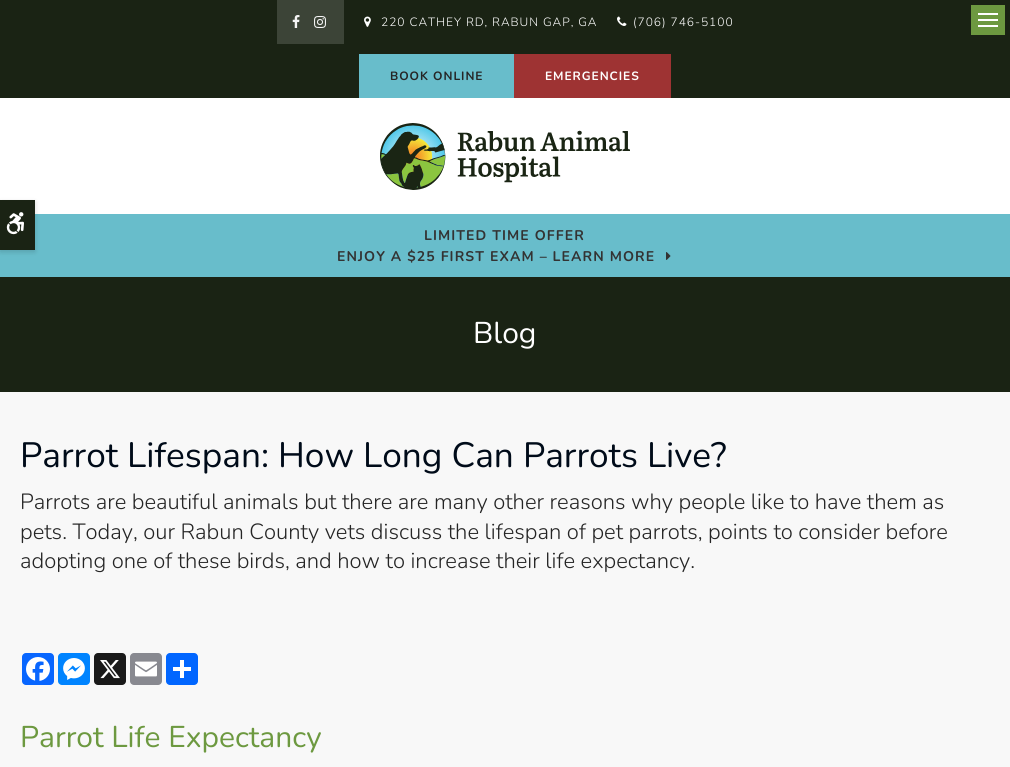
#include <cairo.h>
#include <math.h>
#include <stddef.h>

static cairo_t *ctx;

static void use_color(int r, int g, int b) {
    cairo_set_source_rgb(ctx, r / 255.0, g / 255.0, b / 255.0);
}

static void spaced_text(double x, double y, const char *s, double letter, double word) {
    cairo_move_to(ctx, x, y);
    while (*s) {
        char ch[5] = {0};
        int n = 0;
        do ch[n++] = *s++; while ((*s & 0xC0) == 0x80);
        cairo_show_text(ctx, ch);
        cairo_rel_move_to(ctx, letter + word * (*ch == ' '), 0);
    }
}

static void round_rect(double x, double y, double w, double h, double r) {
    cairo_new_sub_path(ctx);
    cairo_arc(ctx, x + w - r, y + h - r, r, 0, M_PI / 2);
    cairo_arc(ctx, x + r, y + h - r, r, M_PI / 2, M_PI);
    cairo_arc(ctx, x + r, y + r, r, M_PI, 1.5 * M_PI);
    cairo_arc(ctx, x + w - r, y + r, r, 1.5 * M_PI, 2 * M_PI);
    cairo_close_path(ctx);
}

static void shadow(double x, double y, double w, double h, double r, double blur, double alpha) {
    cairo_push_group_with_content(ctx, CAIRO_CONTENT_ALPHA);
    cairo_set_operator(ctx, CAIRO_OPERATOR_SOURCE);
    for (int i = 15; i >= -15 && fmin(w, h) + blur * i / 3 > 0; i -= 2) {
        double e = blur * i / 6;
        cairo_set_source_rgba(ctx, 0, 0, 0, alpha * erfc((i - 1) / 8.5) / 2);
        round_rect(x - e, y - e, w + 2 * e, h + 2 * e, fmax(0, fmin(r + e + blur * .6, fmin(w, h) / 2 + e)));
        cairo_fill(ctx);
    }
    cairo_pattern_t *soft = cairo_pop_group(ctx);
    cairo_mask(ctx, soft);
    cairo_pattern_destroy(soft);
}

static void picture(const char *path, double x, double y, double w, double h) {
    cairo_surface_t *image = cairo_image_surface_create_from_png(path);
    cairo_save(ctx);
    cairo_set_source_surface(ctx, image, x, y);
    cairo_rectangle(ctx, x, y, w, h);
    cairo_fill(ctx);
    cairo_restore(ctx);
    cairo_surface_destroy(image);
}

int main(void) {
    cairo_surface_t *surface = cairo_image_surface_create(CAIRO_FORMAT_RGB24, 1010, 767);
    ctx = cairo_create(surface);
    cairo_font_options_t *options = cairo_font_options_create();
    cairo_font_options_set_hint_metrics(options, CAIRO_HINT_METRICS_OFF);
    cairo_font_options_set_hint_style(options, CAIRO_HINT_STYLE_NONE);
    cairo_set_font_options(ctx, options);
    cairo_set_miter_limit(ctx, 4);
    use_color(248, 248, 248);
    cairo_paint(ctx);
    use_color(255, 255, 255);
    cairo_rectangle(ctx, 0, 98, 1010, 116);
    cairo_fill(ctx);
    use_color(26, 35, 20);
    cairo_rectangle(ctx, 0, 0, 1010, 98);
    cairo_fill(ctx);
    use_color(60, 68, 55);
    cairo_rectangle(ctx, 277, 0, 67, 44);
    cairo_fill(ctx);
    picture("img1.png", 292, 15, 8, 13);
    picture("img2.png", 314, 16, 12, 12);
    picture("img3.png", 364, 16, 7, 11);
    cairo_select_font_face(ctx, "Nunito Light", CAIRO_FONT_SLANT_NORMAL, CAIRO_FONT_WEIGHT_NORMAL);
    cairo_set_font_size(ctx, 12);
    use_color(255, 255, 255);
    spaced_text(381, 26, "220 CATHEY RD, RABUN GAP, GA", 0.95, 0);
    picture("img4.png", 617, 16, 10, 10);
    spaced_text(633, 26, "(706) 746-5100", 0.95, 0);
    use_color(104, 189, 203);
    cairo_rectangle(ctx, 359, 54, 155, 44);
    cairo_fill(ctx);
    cairo_select_font_face(ctx, "Nunito", CAIRO_FONT_SLANT_NORMAL, CAIRO_FONT_WEIGHT_BOLD);
    use_color(37, 37, 37);
    spaced_text(390, 80, "BOOK ONLINE", 0.95, 0);
    use_color(158, 51, 51);
    cairo_rectangle(ctx, 514, 54, 157, 44);
    cairo_fill(ctx);
    use_color(255, 255, 255);
    spaced_text(545, 80, "EMERGENCIES", 0.95, 0);
    picture("img5.png", 380, 123, 250, 67);
    use_color(104, 189, 203);
    cairo_rectangle(ctx, 0, 214, 1010, 63);
    cairo_fill(ctx);
    use_color(0, 0, 0);
    shadow(0, 202, 35, 50, 0, 2.5, 0.15);
    use_color(26, 35, 20);
    cairo_rectangle(ctx, 0, 200, 35, 50);
    cairo_fill(ctx);
    picture("img6.png", 6, 212, 18, 23);
    cairo_set_font_size(ctx, 14);
    use_color(51, 51, 51);
    spaced_text(424, 240, "LIMITED TIME OFFER", 1.1, 0);
    spaced_text(337, 261, "ENJOY A $25 FIRST EXAM – LEARN MORE", 1.1, 0);
    picture("img7.png", 666, 252, 5, 8);
    use_color(26, 35, 20);
    cairo_rectangle(ctx, 0, 277, 1010, 115);
    cairo_fill(ctx);
    cairo_select_font_face(ctx, "Nunito", CAIRO_FONT_SLANT_NORMAL, CAIRO_FONT_WEIGHT_NORMAL);
    cairo_set_font_size(ctx, 30);
    use_color(255, 255, 255);
    cairo_move_to(ctx, 473, 343);
    cairo_show_text(ctx, "Blog");
    cairo_set_font_size(ctx, 35.2);
    use_color(0, 11, 25);
    cairo_move_to(ctx, 20, 467);
    cairo_show_text(ctx, "Parrot Lifespan: How Long Can Parrots Live?");
    cairo_select_font_face(ctx, "Nunito Light", CAIRO_FONT_SLANT_NORMAL, CAIRO_FONT_WEIGHT_NORMAL);
    cairo_set_font_size(ctx, 22);
    use_color(37, 37, 37);
    cairo_move_to(ctx, 20, 509);
    cairo_show_text(ctx, "Parrots are beautiful animals but there are many other reasons why people like to have them as");
    cairo_move_to(ctx, 20, 539);
    cairo_show_text(ctx, "pets. Today, our Rabun County vets discuss the lifespan of pet parrots, points to consider before");
    cairo_move_to(ctx, 20, 568);
    cairo_show_text(ctx, "adopting one of these birds, and how to increase their life expectancy.");
    use_color(8, 102, 255);
    round_rect(22, 653, 32, 32, 4);
    cairo_fill(ctx);
    picture("img8.png", 26, 657, 24, 24);
    use_color(0, 132, 255);
    round_rect(58, 653, 32, 32, 4);
    cairo_fill(ctx);
    picture("img9.png", 63, 658, 22, 22);
    use_color(26, 26, 26);
    round_rect(94, 653, 32, 32, 4);
    cairo_fill(ctx);
    picture("img10.png", 100, 660, 20, 19);
    use_color(136, 137, 144);
    round_rect(130, 653, 32, 32, 4);
    cairo_fill(ctx);
    picture("img11.png", 135, 661, 22, 16);
    use_color(1, 102, 255);
    round_rect(166, 653, 32, 32, 4);
    cairo_fill(ctx);
    use_color(255, 255, 255);
    cairo_rectangle(ctx, 180, 660, 4, 18);
    cairo_fill(ctx);
    cairo_rectangle(ctx, 173, 667, 18, 4);
    cairo_fill(ctx);
    cairo_select_font_face(ctx, "Nunito", CAIRO_FONT_SLANT_NORMAL, CAIRO_FONT_WEIGHT_NORMAL);
    cairo_set_font_size(ctx, 30);
    use_color(109, 153, 64);
    cairo_move_to(ctx, 20, 747);
    cairo_show_text(ctx, "Parrot Life Expectancy");
    cairo_rectangle(ctx, 971, 5, 34, 30);
    cairo_fill(ctx);
    use_color(255, 255, 255);
    cairo_rectangle(ctx, 978, 13, 20, 2);
    cairo_fill(ctx);
    cairo_rectangle(ctx, 978, 19, 20, 2);
    cairo_fill(ctx);
    cairo_rectangle(ctx, 978, 25, 20, 2);
    cairo_fill(ctx);
    cairo_surface_write_to_png(surface, "result.png");
    cairo_font_options_destroy(options);
    cairo_destroy(ctx);
    cairo_surface_destroy(surface);
    return 0;
}
